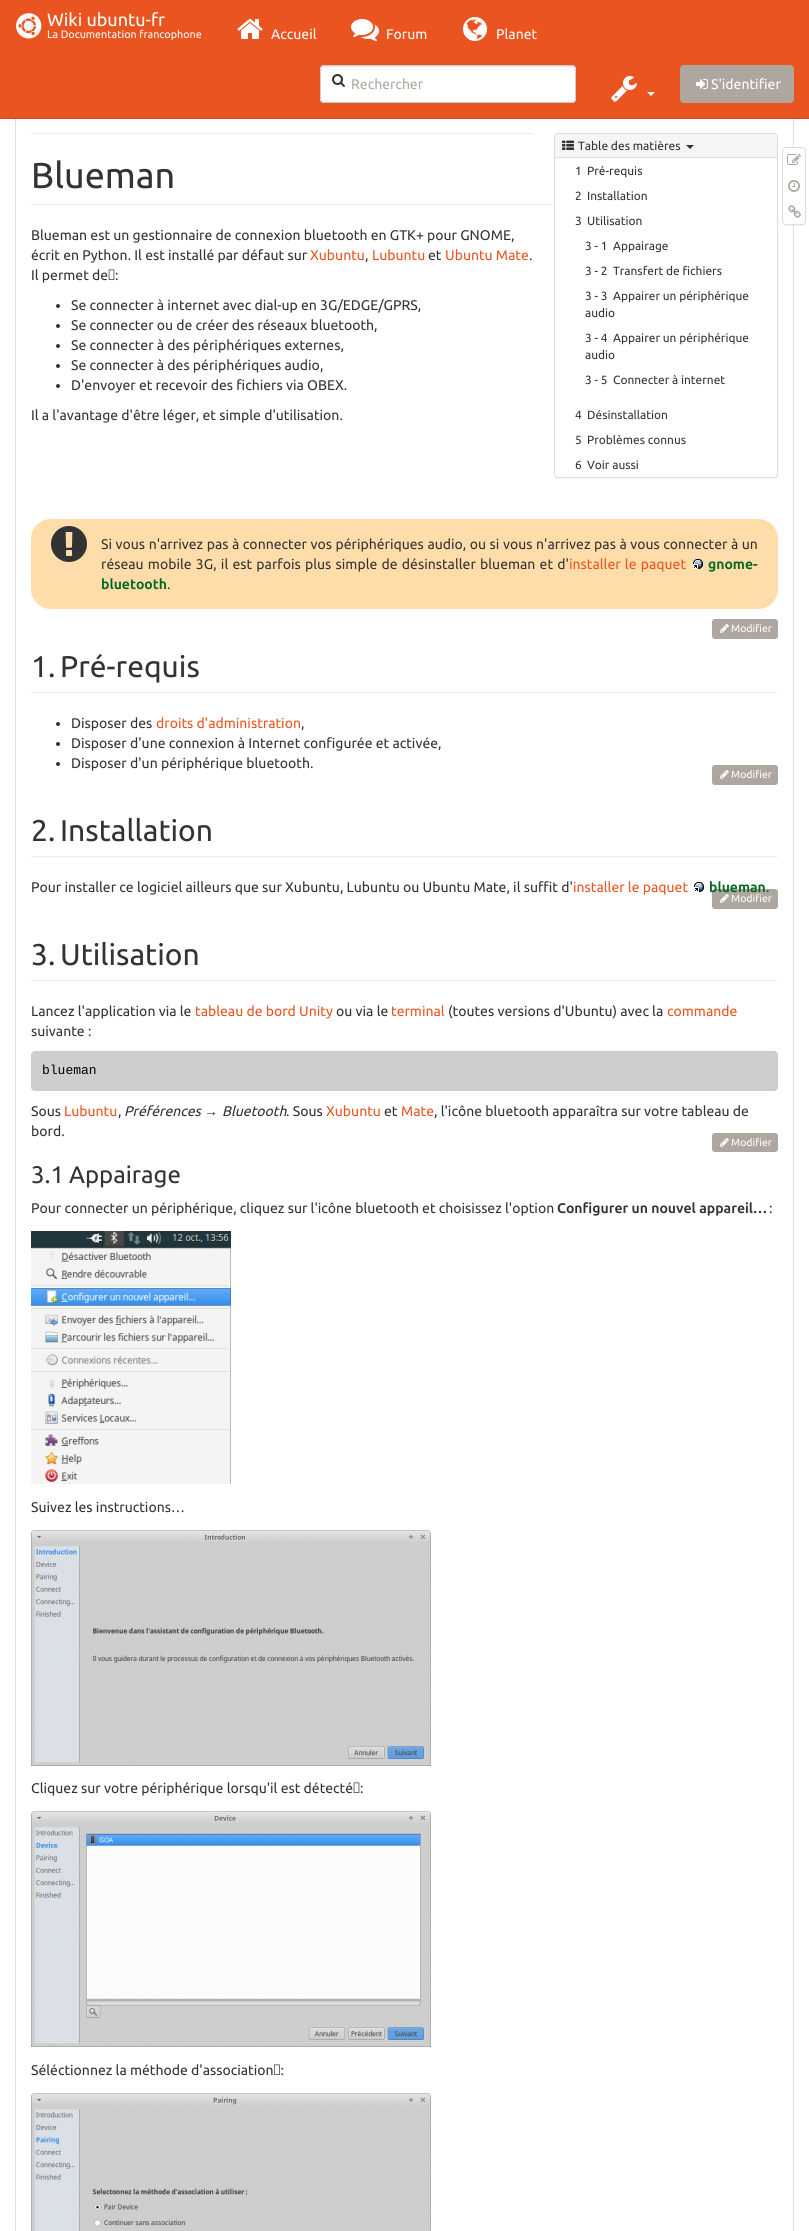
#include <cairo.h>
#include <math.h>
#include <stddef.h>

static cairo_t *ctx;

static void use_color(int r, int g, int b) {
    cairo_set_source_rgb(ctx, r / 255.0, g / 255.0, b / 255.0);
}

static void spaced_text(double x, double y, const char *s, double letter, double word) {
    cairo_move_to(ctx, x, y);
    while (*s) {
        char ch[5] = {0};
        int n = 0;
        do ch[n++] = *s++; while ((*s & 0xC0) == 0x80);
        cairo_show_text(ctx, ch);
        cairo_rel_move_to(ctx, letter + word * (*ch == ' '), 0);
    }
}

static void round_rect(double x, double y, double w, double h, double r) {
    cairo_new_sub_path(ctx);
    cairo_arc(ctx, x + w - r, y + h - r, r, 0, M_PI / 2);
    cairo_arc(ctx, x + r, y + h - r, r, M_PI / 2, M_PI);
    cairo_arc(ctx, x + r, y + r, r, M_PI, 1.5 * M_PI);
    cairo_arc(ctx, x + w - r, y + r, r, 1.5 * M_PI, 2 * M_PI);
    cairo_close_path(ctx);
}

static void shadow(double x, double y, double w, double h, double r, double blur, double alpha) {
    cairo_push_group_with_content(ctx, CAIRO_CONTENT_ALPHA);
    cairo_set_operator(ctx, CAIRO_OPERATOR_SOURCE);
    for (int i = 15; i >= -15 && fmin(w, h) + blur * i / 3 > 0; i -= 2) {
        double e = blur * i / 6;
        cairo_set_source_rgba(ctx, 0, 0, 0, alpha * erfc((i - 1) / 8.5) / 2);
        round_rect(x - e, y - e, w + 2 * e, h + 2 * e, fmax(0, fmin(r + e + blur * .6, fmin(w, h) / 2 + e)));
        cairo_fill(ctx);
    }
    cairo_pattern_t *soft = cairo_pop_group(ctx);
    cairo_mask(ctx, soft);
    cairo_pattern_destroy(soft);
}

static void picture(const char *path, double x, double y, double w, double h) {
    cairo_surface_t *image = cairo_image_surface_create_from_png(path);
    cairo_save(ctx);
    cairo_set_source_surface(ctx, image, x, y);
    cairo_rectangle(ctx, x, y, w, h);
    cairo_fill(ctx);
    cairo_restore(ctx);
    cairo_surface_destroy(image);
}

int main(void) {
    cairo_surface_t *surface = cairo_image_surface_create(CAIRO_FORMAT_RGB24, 809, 2231);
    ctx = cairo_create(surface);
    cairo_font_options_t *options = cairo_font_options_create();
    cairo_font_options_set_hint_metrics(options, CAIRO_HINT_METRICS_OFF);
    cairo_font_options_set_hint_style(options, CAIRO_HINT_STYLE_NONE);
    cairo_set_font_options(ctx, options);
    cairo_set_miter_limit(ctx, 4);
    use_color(255, 255, 255);
    cairo_paint(ctx);
    cairo_rectangle(ctx, 15.5, 97.5, 778, 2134);
    use_color(221, 221, 221);
    cairo_set_line_width(ctx, 1);
    cairo_stroke(ctx);
    use_color(233, 84, 32);
    cairo_rectangle(ctx, 0, 0, 809, 118);
    cairo_fill(ctx);
    use_color(211, 70, 21);
    cairo_rectangle(ctx, 0, 118, 809, 1);
    cairo_fill(ctx);
    picture("img1.png", 16, 13, 26, 26);
    cairo_select_font_face(ctx, "Ubuntu", CAIRO_FONT_SLANT_NORMAL, CAIRO_FONT_WEIGHT_NORMAL);
    cairo_set_font_size(ctx, 18);
    use_color(255, 255, 255);
    cairo_move_to(ctx, 47, 26);
    cairo_show_text(ctx, "Wiki ubuntu-fr");
    cairo_set_font_size(ctx, 10.75);
    cairo_move_to(ctx, 47, 38);
    cairo_show_text(ctx, "La Documentation francophone");
    picture("img2.png", 237, 19, 26, 20);
    cairo_set_font_size(ctx, 14);
    cairo_move_to(ctx, 271, 39);
    cairo_show_text(ctx, "Accueil");
    picture("img3.png", 351, 19, 28, 22);
    cairo_move_to(ctx, 386, 39);
    cairo_show_text(ctx, "Forum");
    picture("img4.png", 463, 17, 24, 24);
    cairo_move_to(ctx, 496, 39);
    cairo_show_text(ctx, "Planet");
    round_rect(320, 65, 256, 38, 4);
    cairo_fill(ctx);
    use_color(236, 236, 236);
    cairo_new_path(ctx);
    cairo_move_to(ctx, 324, 67);
    cairo_line_to(ctx, 573, 67);
    cairo_line_to(ctx, 575, 68);
    cairo_line_to(ctx, 575, 70);
    cairo_curve_to(ctx, 575, 68, 574, 66, 572, 66);
    cairo_line_to(ctx, 324, 66);
    cairo_curve_to(ctx, 322, 66, 321, 68, 321, 70);
    cairo_curve_to(ctx, 321, 68, 322, 67, 324, 67);
    cairo_close_path(ctx);
    cairo_fill(ctx);
    round_rect(320.5, 65.5, 255, 37, 3.5);
    use_color(204, 204, 204);
    cairo_stroke(ctx);
    picture("img5.png", 332, 74, 13, 13);
    use_color(174, 167, 159);
    cairo_move_to(ctx, 351, 89);
    cairo_show_text(ctx, "Rechercher");
    picture("img6.png", 611, 76, 26, 26);
    use_color(255, 255, 255);
    cairo_new_path(ctx);
    cairo_move_to(ctx, 647, 92);
    cairo_line_to(ctx, 655, 92);
    cairo_line_to(ctx, 651, 96);
    cairo_close_path(ctx);
    cairo_fill(ctx);
    use_color(174, 167, 159);
    round_rect(680.5, 65.5, 113, 37, 3.5);
    cairo_fill_preserve(ctx);
    cairo_stroke(ctx);
    picture("img7.png", 696, 79, 12, 10);
    use_color(255, 255, 255);
    cairo_move_to(ctx, 711, 89);
    cairo_show_text(ctx, "S'identifier");
    use_color(238, 238, 238);
    cairo_rectangle(ctx, 31, 204, 523, 1);
    cairo_fill(ctx);
    use_color(0, 0, 0);
    shadow(554, 134, 224, 345, 4, 0.5, 0.05);
    use_color(255, 255, 255);
    round_rect(554.5, 133.5, 223, 344, 3.5);
    cairo_fill_preserve(ctx);
    use_color(221, 221, 221);
    cairo_stroke(ctx);
    use_color(245, 245, 245);
    cairo_new_path(ctx);
    cairo_move_to(ctx, 558, 134);
    cairo_line_to(ctx, 774, 134);
    cairo_curve_to(ctx, 775.5, 134, 777, 135.5, 777, 137);
    cairo_line_to(ctx, 777, 158);
    cairo_line_to(ctx, 555, 158);
    cairo_line_to(ctx, 555, 137);
    cairo_curve_to(ctx, 555, 135.5, 556.5, 134, 558, 134);
    cairo_close_path(ctx);
    cairo_fill(ctx);
    use_color(221, 221, 221);
    cairo_rectangle(ctx, 555, 157, 222, 1);
    cairo_fill(ctx);
    picture("img8.png", 562, 140, 12, 10);
    cairo_set_font_size(ctx, 12);
    use_color(51, 51, 51);
    cairo_move_to(ctx, 578, 150);
    cairo_show_text(ctx, "Table des matières");
    cairo_new_path(ctx);
    cairo_move_to(ctx, 686, 145);
    cairo_line_to(ctx, 694, 145);
    cairo_line_to(ctx, 690, 149);
    cairo_close_path(ctx);
    cairo_fill(ctx);
    cairo_set_font_size(ctx, 11.9);
    cairo_move_to(ctx, 575, 175);
    cairo_show_text(ctx, "1");
    cairo_move_to(ctx, 587, 175);
    cairo_show_text(ctx, "Pré-requis");
    cairo_move_to(ctx, 575, 200);
    cairo_show_text(ctx, "2");
    cairo_move_to(ctx, 587, 200);
    cairo_show_text(ctx, "Installation");
    cairo_move_to(ctx, 575, 225);
    cairo_show_text(ctx, "3");
    cairo_move_to(ctx, 587, 225);
    cairo_show_text(ctx, "Utilisation");
    cairo_move_to(ctx, 585, 250);
    cairo_show_text(ctx, "3 - 1");
    cairo_move_to(ctx, 613, 250);
    cairo_show_text(ctx, "Appairage");
    cairo_move_to(ctx, 585, 275);
    cairo_show_text(ctx, "3 - 2");
    cairo_move_to(ctx, 613, 275);
    cairo_show_text(ctx, "Transfert de fichiers");
    cairo_move_to(ctx, 585, 300);
    cairo_show_text(ctx, "3 - 3");
    cairo_move_to(ctx, 613, 300);
    cairo_show_text(ctx, "Appairer un périphérique");
    cairo_move_to(ctx, 585, 317);
    cairo_show_text(ctx, "audio");
    cairo_move_to(ctx, 585, 342);
    cairo_show_text(ctx, "3 - 4");
    cairo_move_to(ctx, 613, 342);
    cairo_show_text(ctx, "Appairer un périphérique");
    cairo_move_to(ctx, 585, 359);
    cairo_show_text(ctx, "audio");
    cairo_move_to(ctx, 585, 384);
    cairo_show_text(ctx, "3 - 5");
    cairo_move_to(ctx, 613, 384);
    cairo_show_text(ctx, "Connecter à internet");
    cairo_move_to(ctx, 575, 419);
    cairo_show_text(ctx, "4");
    cairo_move_to(ctx, 587, 419);
    cairo_show_text(ctx, "Désinstallation");
    cairo_move_to(ctx, 575, 444);
    cairo_show_text(ctx, "5");
    cairo_move_to(ctx, 587, 444);
    cairo_show_text(ctx, "Problèmes connus");
    cairo_move_to(ctx, 575, 469);
    cairo_show_text(ctx, "6");
    cairo_move_to(ctx, 587, 469);
    cairo_show_text(ctx, "Voir aussi");
    use_color(238, 238, 238);
    cairo_rectangle(ctx, 31, 133, 502, 1);
    cairo_fill(ctx);
    cairo_set_font_size(ctx, 36);
    use_color(51, 51, 51);
    cairo_move_to(ctx, 31, 188);
    cairo_show_text(ctx, "Blueman");
    cairo_set_font_size(ctx, 14);
    cairo_move_to(ctx, 31, 240);
    cairo_show_text(ctx, "Blueman est un gestionnaire de connexion bluetooth en GTK+ pour GNOME,");
    cairo_move_to(ctx, 31, 260);
    cairo_show_text(ctx, "écrit en Python. Il est installé par défaut sur");
    use_color(233, 84, 32);
    cairo_move_to(ctx, 310, 260);
    cairo_show_text(ctx, "Xubuntu");
    use_color(51, 51, 51);
    cairo_move_to(ctx, 365, 260);
    cairo_show_text(ctx, ",");
    use_color(233, 84, 32);
    cairo_move_to(ctx, 372, 260);
    cairo_show_text(ctx, "Lubuntu");
    use_color(51, 51, 51);
    cairo_move_to(ctx, 428, 260);
    cairo_show_text(ctx, "et");
    use_color(233, 84, 32);
    cairo_move_to(ctx, 445, 260);
    cairo_show_text(ctx, "Ubuntu Mate");
    use_color(51, 51, 51);
    cairo_move_to(ctx, 529, 260);
    cairo_show_text(ctx, ".");
    cairo_move_to(ctx, 31, 280);
    cairo_show_text(ctx, "Il permet de :");
    cairo_new_path(ctx);
    cairo_arc(ctx, 58, 306, 2, 0, 2 * M_PI);
    cairo_fill(ctx);
    cairo_move_to(ctx, 71, 310);
    cairo_show_text(ctx, "Se connecter à internet avec dial-up en 3G/EDGE/GPRS,");
    cairo_new_path(ctx);
    cairo_arc(ctx, 58, 326, 2, 0, 2 * M_PI);
    cairo_fill(ctx);
    cairo_move_to(ctx, 71, 330);
    cairo_show_text(ctx, "Se connecter ou de créer des réseaux bluetooth,");
    cairo_new_path(ctx);
    cairo_arc(ctx, 58, 346, 2, 0, 2 * M_PI);
    cairo_fill(ctx);
    cairo_move_to(ctx, 71, 350);
    cairo_show_text(ctx, "Se connecter à des périphériques externes,");
    cairo_new_path(ctx);
    cairo_arc(ctx, 58, 366, 2, 0, 2 * M_PI);
    cairo_fill(ctx);
    cairo_move_to(ctx, 71, 370);
    cairo_show_text(ctx, "Se connecter à des périphériques audio,");
    cairo_new_path(ctx);
    cairo_arc(ctx, 58, 386, 2, 0, 2 * M_PI);
    cairo_fill(ctx);
    cairo_move_to(ctx, 71, 390);
    cairo_show_text(ctx, "D'envoyer et recevoir des fichiers via OBEX.");
    cairo_move_to(ctx, 31, 420);
    cairo_show_text(ctx, "Il a l'avantage d'être léger, et simple d'utilisation.");
    use_color(255, 221, 170);
    round_rect(31, 519, 747, 90, 20);
    cairo_fill(ctx);
    picture("img9.png", 51, 526, 36, 36);
    use_color(51, 51, 51);
    spaced_text(101, 549, "Si vous n'arrivez pas à connecter vos périphériques audio, ou si vous n'arrivez pas à vous connecter à un", 0, 0.3);
    spaced_text(101, 569, "réseau mobile 3G, il est parfois plus simple de désinstaller blueman et d'", 0, 1);
    use_color(233, 84, 32);
    spaced_text(569, 569, "installer le paquet", 0, 1);
    picture("img10.png", 693, 559, 10, 10);
    cairo_select_font_face(ctx, "Ubuntu", CAIRO_FONT_SLANT_NORMAL, CAIRO_FONT_WEIGHT_BOLD);
    use_color(0, 102, 33);
    cairo_move_to(ctx, 708, 569);
    cairo_show_text(ctx, "gnome-");
    cairo_move_to(ctx, 101, 589);
    cairo_show_text(ctx, "bluetooth");
    cairo_select_font_face(ctx, "Ubuntu", CAIRO_FONT_SLANT_NORMAL, CAIRO_FONT_WEIGHT_NORMAL);
    use_color(51, 51, 51);
    cairo_move_to(ctx, 167, 589);
    cairo_show_text(ctx, ".");
    use_color(174, 167, 159);
    round_rect(712.5, 619.5, 65, 19, 2.5);
    cairo_fill_preserve(ctx);
    cairo_stroke(ctx);
    picture("img11.png", 720, 624, 9, 9);
    cairo_set_font_size(ctx, 10.5);
    use_color(255, 255, 255);
    cairo_move_to(ctx, 731, 632);
    cairo_show_text(ctx, "Modifier");
    use_color(238, 238, 238);
    cairo_rectangle(ctx, 31, 692, 747, 1);
    cairo_fill(ctx);
    cairo_set_font_size(ctx, 30);
    use_color(51, 51, 51);
    cairo_move_to(ctx, 31, 677);
    cairo_show_text(ctx, "1.");
    cairo_move_to(ctx, 60, 677);
    cairo_show_text(ctx, "Pré-requis");
    cairo_new_path(ctx);
    cairo_arc(ctx, 58, 724, 2, 0, 2 * M_PI);
    cairo_fill(ctx);
    cairo_set_font_size(ctx, 14);
    cairo_move_to(ctx, 71, 728);
    cairo_show_text(ctx, "Disposer des");
    use_color(233, 84, 32);
    cairo_move_to(ctx, 156, 728);
    cairo_show_text(ctx, "droits d'administration");
    use_color(51, 51, 51);
    cairo_move_to(ctx, 301, 728);
    cairo_show_text(ctx, ",");
    cairo_new_path(ctx);
    cairo_arc(ctx, 58, 744, 2, 0, 2 * M_PI);
    cairo_fill(ctx);
    cairo_move_to(ctx, 71, 748);
    cairo_show_text(ctx, "Disposer d'une connexion à Internet configurée et activée,");
    cairo_new_path(ctx);
    cairo_arc(ctx, 58, 764, 2, 0, 2 * M_PI);
    cairo_fill(ctx);
    cairo_move_to(ctx, 71, 768);
    cairo_show_text(ctx, "Disposer d'un périphérique bluetooth.");
    use_color(174, 167, 159);
    round_rect(712.5, 765.5, 65, 19, 2.5);
    cairo_fill_preserve(ctx);
    cairo_stroke(ctx);
    picture("img11.png", 720, 770, 9, 9);
    cairo_set_font_size(ctx, 10.5);
    use_color(255, 255, 255);
    cairo_move_to(ctx, 731, 778);
    cairo_show_text(ctx, "Modifier");
    use_color(238, 238, 238);
    cairo_rectangle(ctx, 31, 856, 747, 1);
    cairo_fill(ctx);
    cairo_set_font_size(ctx, 30);
    use_color(51, 51, 51);
    cairo_move_to(ctx, 31, 841);
    cairo_show_text(ctx, "2.");
    cairo_move_to(ctx, 60, 841);
    cairo_show_text(ctx, "Installation");
    cairo_set_font_size(ctx, 14);
    cairo_move_to(ctx, 31, 892);
    cairo_show_text(ctx, "Pour installer ce logiciel ailleurs que sur Xubuntu, Lubuntu ou Ubuntu Mate, il suffit d'");
    use_color(233, 84, 32);
    cairo_move_to(ctx, 573, 892);
    cairo_show_text(ctx, "installer le paquet");
    picture("img12.png", 694, 882, 10, 10);
    use_color(174, 167, 159);
    round_rect(712.5, 889.5, 65, 19, 2.5);
    cairo_fill_preserve(ctx);
    cairo_stroke(ctx);
    cairo_select_font_face(ctx, "Ubuntu", CAIRO_FONT_SLANT_NORMAL, CAIRO_FONT_WEIGHT_BOLD);
    use_color(0, 102, 33);
    cairo_move_to(ctx, 709, 892);
    cairo_show_text(ctx, "blueman");
    cairo_select_font_face(ctx, "Ubuntu", CAIRO_FONT_SLANT_NORMAL, CAIRO_FONT_WEIGHT_NORMAL);
    use_color(51, 51, 51);
    cairo_move_to(ctx, 766, 892);
    cairo_show_text(ctx, ".");
    picture("img11.png", 720, 894, 9, 9);
    cairo_set_font_size(ctx, 10.5);
    use_color(255, 255, 255);
    cairo_move_to(ctx, 731, 902);
    cairo_show_text(ctx, "Modifier");
    use_color(238, 238, 238);
    cairo_rectangle(ctx, 31, 980, 747, 1);
    cairo_fill(ctx);
    cairo_set_font_size(ctx, 30);
    use_color(51, 51, 51);
    cairo_move_to(ctx, 31, 965);
    cairo_show_text(ctx, "3.");
    cairo_move_to(ctx, 60, 965);
    cairo_show_text(ctx, "Utilisation");
    cairo_set_font_size(ctx, 14);
    cairo_move_to(ctx, 31, 1016);
    cairo_show_text(ctx, "Lancez l'application via le");
    use_color(233, 84, 32);
    cairo_move_to(ctx, 195, 1016);
    cairo_show_text(ctx, "tableau de bord Unity");
    use_color(51, 51, 51);
    cairo_move_to(ctx, 336, 1016);
    cairo_show_text(ctx, "ou via le");
    use_color(233, 84, 32);
    cairo_move_to(ctx, 391, 1016);
    cairo_show_text(ctx, "terminal");
    use_color(51, 51, 51);
    cairo_move_to(ctx, 448, 1016);
    cairo_show_text(ctx, "(toutes versions d'Ubuntu) avec la");
    use_color(233, 84, 32);
    cairo_move_to(ctx, 667, 1016);
    cairo_show_text(ctx, "commande");
    use_color(51, 51, 51);
    cairo_move_to(ctx, 31, 1036);
    cairo_show_text(ctx, "suivante :");
    use_color(206, 206, 206);
    round_rect(31.5, 1051.5, 746, 39, 3.5);
    cairo_fill_preserve(ctx);
    use_color(204, 204, 204);
    cairo_stroke(ctx);
    cairo_select_font_face(ctx, "Liberation Mono", CAIRO_FONT_SLANT_NORMAL, CAIRO_FONT_WEIGHT_NORMAL);
    cairo_set_font_size(ctx, 13);
    use_color(0, 0, 0);
    cairo_move_to(ctx, 42, 1074);
    cairo_show_text(ctx, "blueman");
    cairo_select_font_face(ctx, "Ubuntu", CAIRO_FONT_SLANT_NORMAL, CAIRO_FONT_WEIGHT_NORMAL);
    cairo_set_font_size(ctx, 14);
    use_color(51, 51, 51);
    cairo_move_to(ctx, 31, 1116);
    cairo_show_text(ctx, "Sous");
    use_color(233, 84, 32);
    cairo_move_to(ctx, 64, 1116);
    cairo_show_text(ctx, "Lubuntu");
    use_color(51, 51, 51);
    cairo_move_to(ctx, 118, 1116);
    cairo_show_text(ctx, ",");
    cairo_select_font_face(ctx, "Ubuntu", CAIRO_FONT_SLANT_ITALIC, CAIRO_FONT_WEIGHT_NORMAL);
    cairo_move_to(ctx, 124, 1116);
    cairo_show_text(ctx, "Préférences");
    cairo_select_font_face(ctx, "Liberation Sans", CAIRO_FONT_SLANT_ITALIC, CAIRO_FONT_WEIGHT_NORMAL);
    cairo_move_to(ctx, 204, 1116);
    cairo_show_text(ctx, "→");
    cairo_select_font_face(ctx, "Ubuntu", CAIRO_FONT_SLANT_ITALIC, CAIRO_FONT_WEIGHT_NORMAL);
    cairo_move_to(ctx, 222, 1116);
    cairo_show_text(ctx, "Bluetooth");
    cairo_select_font_face(ctx, "Ubuntu", CAIRO_FONT_SLANT_NORMAL, CAIRO_FONT_WEIGHT_NORMAL);
    cairo_move_to(ctx, 286, 1116);
    cairo_show_text(ctx, ". Sous");
    use_color(233, 84, 32);
    cairo_move_to(ctx, 326, 1116);
    cairo_show_text(ctx, "Xubuntu");
    use_color(51, 51, 51);
    cairo_move_to(ctx, 384, 1116);
    cairo_show_text(ctx, "et");
    use_color(233, 84, 32);
    cairo_move_to(ctx, 401, 1116);
    cairo_show_text(ctx, "Mate");
    use_color(51, 51, 51);
    cairo_move_to(ctx, 434, 1116);
    cairo_show_text(ctx, ", l'icône bluetooth apparaîtra sur votre tableau de");
    cairo_move_to(ctx, 31, 1136);
    cairo_show_text(ctx, "bord.");
    use_color(174, 167, 159);
    round_rect(712.5, 1133.5, 65, 18, 2.5);
    cairo_fill_preserve(ctx);
    cairo_stroke(ctx);
    picture("img11.png", 720, 1138, 9, 9);
    cairo_set_font_size(ctx, 10.5);
    use_color(255, 255, 255);
    cairo_move_to(ctx, 731, 1146);
    cairo_show_text(ctx, "Modifier");
    cairo_set_font_size(ctx, 24);
    use_color(51, 51, 51);
    cairo_move_to(ctx, 31, 1183);
    cairo_show_text(ctx, "3.1");
    cairo_move_to(ctx, 69, 1183);
    cairo_show_text(ctx, "Appairage");
    cairo_set_font_size(ctx, 14);
    cairo_move_to(ctx, 31, 1213);
    cairo_show_text(ctx, "Pour connecter un périphérique, cliquez sur l'icône bluetooth et choisissez l'option");
    cairo_select_font_face(ctx, "Ubuntu", CAIRO_FONT_SLANT_NORMAL, CAIRO_FONT_WEIGHT_BOLD);
    cairo_move_to(ctx, 557, 1213);
    cairo_show_text(ctx, "Configurer un nouvel appareil…");
    cairo_select_font_face(ctx, "Ubuntu", CAIRO_FONT_SLANT_NORMAL, CAIRO_FONT_WEIGHT_NORMAL);
    cairo_move_to(ctx, 769, 1213);
    cairo_show_text(ctx, ":");
    picture("img13.png", 31, 1231, 200, 253);
    cairo_move_to(ctx, 31, 1512);
    cairo_show_text(ctx, "Suivez les instructions…");
    picture("img14.png", 31, 1530, 400, 236);
    cairo_move_to(ctx, 31, 1793);
    cairo_show_text(ctx, "Cliquez sur votre périphérique lorsqu'il est détecté :");
    picture("img15.png", 31, 1811, 400, 236);
    cairo_move_to(ctx, 31, 2075);
    cairo_show_text(ctx, "Séléctionnez la méthode d'association :");
    picture("img16.png", 31, 2093, 400, 138);
    use_color(0, 0, 0);
    shadow(782, 148, 24, 78, 4, 0.5, 0.05);
    use_color(255, 255, 255);
    round_rect(782.5, 147.5, 23, 77, 3.5);
    cairo_fill_preserve(ctx);
    use_color(221, 221, 221);
    cairo_stroke(ctx);
    picture("img17.png", 787, 154, 14, 11);
    picture("img18.png", 788, 180, 12, 12);
    picture("img19.png", 788, 205, 13, 13);
    cairo_surface_write_to_png(surface, "result.png");
    cairo_font_options_destroy(options);
    cairo_destroy(ctx);
    cairo_surface_destroy(surface);
    return 0;
}
